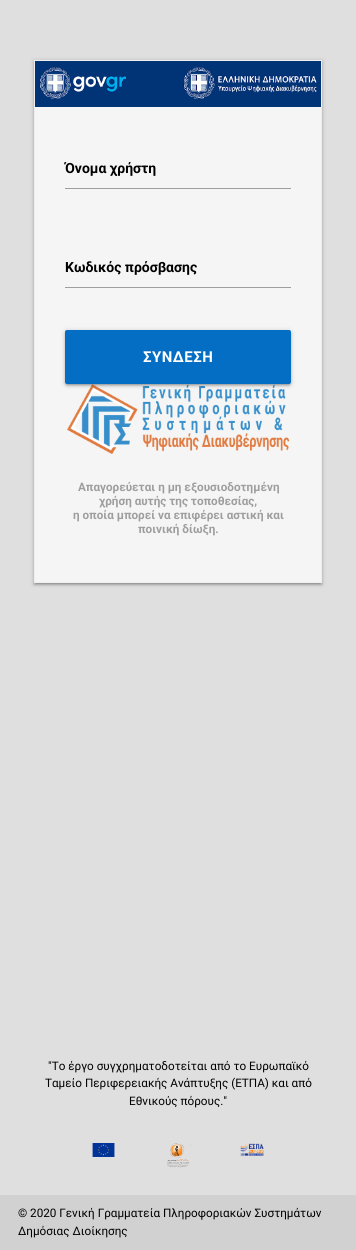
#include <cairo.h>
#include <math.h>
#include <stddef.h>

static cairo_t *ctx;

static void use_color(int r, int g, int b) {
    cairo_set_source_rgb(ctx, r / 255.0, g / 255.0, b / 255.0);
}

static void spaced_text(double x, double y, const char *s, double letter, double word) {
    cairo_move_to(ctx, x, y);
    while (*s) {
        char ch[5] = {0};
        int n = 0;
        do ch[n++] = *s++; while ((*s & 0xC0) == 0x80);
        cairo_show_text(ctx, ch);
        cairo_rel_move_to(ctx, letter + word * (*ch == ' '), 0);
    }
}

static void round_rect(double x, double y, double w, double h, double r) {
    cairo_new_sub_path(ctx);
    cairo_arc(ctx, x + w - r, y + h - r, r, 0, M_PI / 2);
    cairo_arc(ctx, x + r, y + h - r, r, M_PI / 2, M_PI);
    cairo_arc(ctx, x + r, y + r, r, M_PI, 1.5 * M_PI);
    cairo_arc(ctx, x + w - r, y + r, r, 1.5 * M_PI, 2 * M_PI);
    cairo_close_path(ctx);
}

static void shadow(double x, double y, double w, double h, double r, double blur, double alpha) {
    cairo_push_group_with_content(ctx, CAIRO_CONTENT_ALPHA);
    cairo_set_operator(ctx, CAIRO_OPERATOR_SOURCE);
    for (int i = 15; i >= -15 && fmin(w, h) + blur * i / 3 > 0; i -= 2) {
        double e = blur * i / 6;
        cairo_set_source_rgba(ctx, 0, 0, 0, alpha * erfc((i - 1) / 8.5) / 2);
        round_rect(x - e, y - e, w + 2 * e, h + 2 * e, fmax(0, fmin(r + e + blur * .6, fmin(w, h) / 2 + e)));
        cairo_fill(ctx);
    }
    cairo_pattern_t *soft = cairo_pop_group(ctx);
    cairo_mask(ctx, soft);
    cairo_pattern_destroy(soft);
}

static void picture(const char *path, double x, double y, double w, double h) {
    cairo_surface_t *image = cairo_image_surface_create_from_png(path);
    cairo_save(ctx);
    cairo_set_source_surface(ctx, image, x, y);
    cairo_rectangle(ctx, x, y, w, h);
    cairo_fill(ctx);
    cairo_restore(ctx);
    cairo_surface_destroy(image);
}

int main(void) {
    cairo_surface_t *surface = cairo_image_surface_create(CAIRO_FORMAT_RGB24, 356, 1250);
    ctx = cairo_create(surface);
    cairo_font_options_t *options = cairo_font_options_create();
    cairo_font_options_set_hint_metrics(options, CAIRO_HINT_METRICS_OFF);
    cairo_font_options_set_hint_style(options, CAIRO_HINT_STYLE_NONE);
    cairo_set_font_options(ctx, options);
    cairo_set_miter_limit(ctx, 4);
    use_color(223, 223, 223);
    cairo_paint(ctx);
    use_color(0, 0, 0);
    shadow(34, 61, 288, 523, 0, 2.5, 0.2);
    shadow(36, 65, 284, 519, 0, 0.5, 0.12);
    shadow(34, 62, 288, 523, 0, 1, 0.14);
    use_color(245, 245, 245);
    cairo_rectangle(ctx, 35, 107, 286, 475);
    cairo_fill(ctx);
    cairo_rectangle(ctx, 34.5, 60.5, 287, 522);
    use_color(238, 238, 238);
    cairo_set_line_width(ctx, 1);
    cairo_stroke(ctx);
    picture("img1.png", 35, 61, 286, 46);
    cairo_select_font_face(ctx, "Roboto", CAIRO_FONT_SLANT_NORMAL, CAIRO_FONT_WEIGHT_BOLD);
    cairo_set_font_size(ctx, 14);
    use_color(0, 0, 0);
    cairo_move_to(ctx, 65, 173);
    cairo_show_text(ctx, "Όνομα χρήστη");
    use_color(158, 158, 158);
    cairo_rectangle(ctx, 65, 188, 226, 1);
    cairo_fill(ctx);
    use_color(0, 0, 0);
    cairo_move_to(ctx, 65, 272);
    cairo_show_text(ctx, "Κωδικός πρόσβασης");
    use_color(158, 158, 158);
    cairo_rectangle(ctx, 65, 287, 226, 1);
    cairo_fill(ctx);
    picture("img2.png", 67, 384, 222, 70);
    use_color(0, 0, 0);
    shadow(65, 331, 226, 54, 2, 2.5, 0.2);
    shadow(67, 335, 222, 50, 0, 0.5, 0.12);
    shadow(65, 332, 226, 54, 2, 1, 0.14);
    use_color(4, 110, 197);
    round_rect(65, 330, 226, 54, 2);
    cairo_fill(ctx);
    cairo_set_font_size(ctx, 15);
    use_color(255, 255, 255);
    spaced_text(143, 362, "ΣΥΝΔΕΣΗ", 0.5, 0);
    cairo_set_font_size(ctx, 11.7);
    use_color(158, 158, 158);
    cairo_move_to(ctx, 78, 491);
    cairo_show_text(ctx, "Απαγορεύεται η μη εξουσιοδοτημένη");
    cairo_move_to(ctx, 99, 505);
    cairo_show_text(ctx, "χρήση αυτής της τοποθεσίας,");
    cairo_move_to(ctx, 73, 519);
    cairo_show_text(ctx, "η οποία μπορεί να επιφέρει αστική και");
    cairo_move_to(ctx, 138, 533);
    cairo_show_text(ctx, "ποινική δίωξη.");
    cairo_select_font_face(ctx, "Roboto", CAIRO_FONT_SLANT_NORMAL, CAIRO_FONT_WEIGHT_NORMAL);
    use_color(0, 0, 0);
    cairo_move_to(ctx, 48, 1070);
    cairo_show_text(ctx, "\"Το έργο συγχρηματοδοτείται από το Ευρωπαϊκό");
    cairo_move_to(ctx, 45, 1087);
    cairo_show_text(ctx, "Ταμείο Περιφερειακής Ανάπτυξης (ΕΤΠΑ) και από");
    cairo_move_to(ctx, 129, 1105);
    cairo_show_text(ctx, "Εθνικούς πόρους.\"");
    picture("img3.png", 92, 1143, 23, 14);
    picture("img4.png", 167, 1143, 24, 25);
    picture("img5.png", 240, 1143, 24, 13);
    use_color(209, 209, 209);
    cairo_rectangle(ctx, 0, 1195, 356, 55);
    cairo_fill(ctx);
    use_color(0, 0, 0);
    cairo_move_to(ctx, 18, 1217);
    cairo_show_text(ctx, "© 2020 Γενική Γραμματεία Πληροφοριακών Συστημάτων");
    cairo_move_to(ctx, 18, 1235);
    cairo_show_text(ctx, "Δημόσιας Διοίκησης");
    cairo_surface_write_to_png(surface, "result.png");
    cairo_font_options_destroy(options);
    cairo_destroy(ctx);
    cairo_surface_destroy(surface);
    return 0;
}
